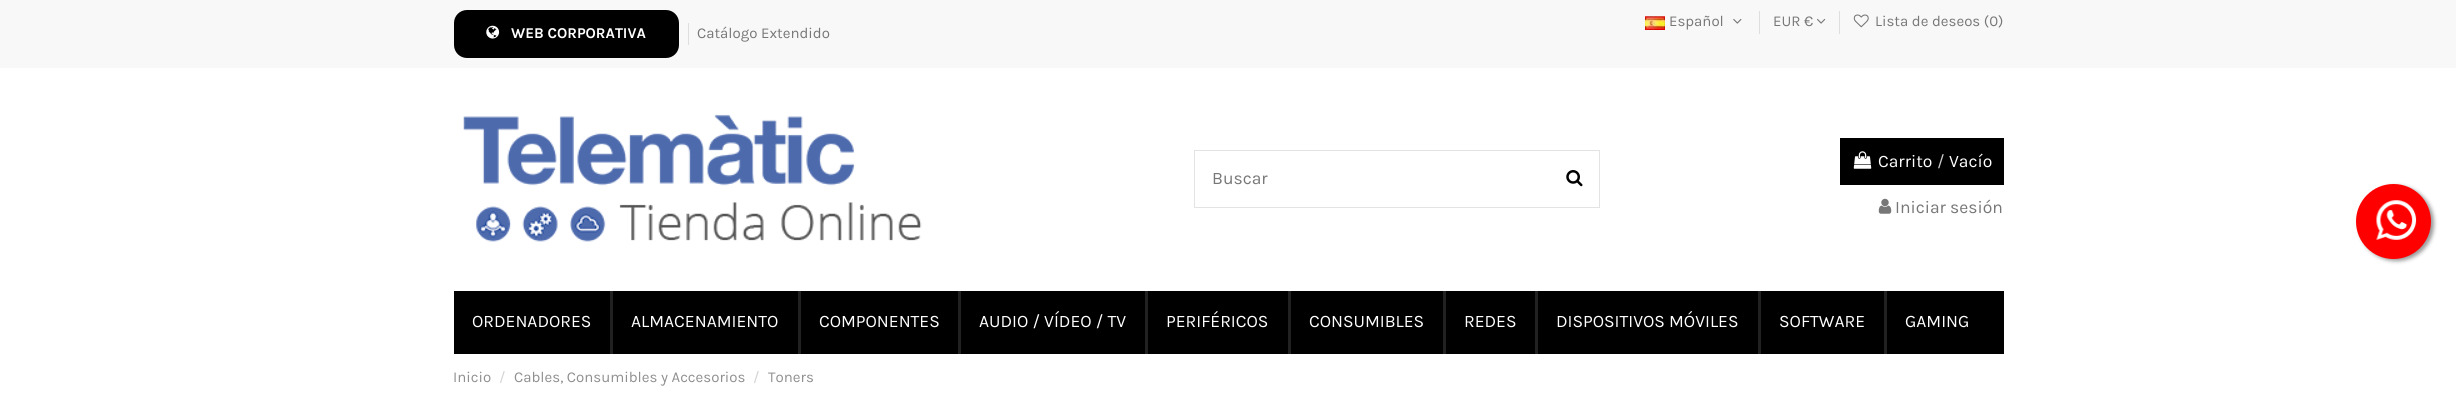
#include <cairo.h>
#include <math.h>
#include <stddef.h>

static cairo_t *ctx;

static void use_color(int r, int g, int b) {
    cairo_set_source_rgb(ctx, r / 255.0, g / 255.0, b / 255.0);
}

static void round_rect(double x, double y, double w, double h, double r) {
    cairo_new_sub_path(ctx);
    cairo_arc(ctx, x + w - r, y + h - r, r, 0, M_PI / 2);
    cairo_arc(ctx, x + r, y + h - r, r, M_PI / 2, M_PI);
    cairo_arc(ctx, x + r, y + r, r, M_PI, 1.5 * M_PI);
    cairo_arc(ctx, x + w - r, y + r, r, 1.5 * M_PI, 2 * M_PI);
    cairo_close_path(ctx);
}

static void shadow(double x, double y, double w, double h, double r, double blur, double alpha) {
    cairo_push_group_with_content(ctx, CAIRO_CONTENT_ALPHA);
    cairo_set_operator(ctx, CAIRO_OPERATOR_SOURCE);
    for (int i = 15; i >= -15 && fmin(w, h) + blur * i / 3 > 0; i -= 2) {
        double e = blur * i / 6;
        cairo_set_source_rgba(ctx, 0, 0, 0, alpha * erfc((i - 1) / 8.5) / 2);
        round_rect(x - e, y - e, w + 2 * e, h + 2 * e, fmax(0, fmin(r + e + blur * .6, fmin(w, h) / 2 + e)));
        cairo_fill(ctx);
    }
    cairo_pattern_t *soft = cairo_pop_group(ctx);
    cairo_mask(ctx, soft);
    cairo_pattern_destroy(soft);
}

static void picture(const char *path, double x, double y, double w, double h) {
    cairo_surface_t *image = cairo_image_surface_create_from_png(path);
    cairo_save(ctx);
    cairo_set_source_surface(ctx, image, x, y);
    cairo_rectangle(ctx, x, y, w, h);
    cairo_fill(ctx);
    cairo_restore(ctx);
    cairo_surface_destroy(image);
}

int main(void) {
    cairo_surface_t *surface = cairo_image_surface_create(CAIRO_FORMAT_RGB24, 2456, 400);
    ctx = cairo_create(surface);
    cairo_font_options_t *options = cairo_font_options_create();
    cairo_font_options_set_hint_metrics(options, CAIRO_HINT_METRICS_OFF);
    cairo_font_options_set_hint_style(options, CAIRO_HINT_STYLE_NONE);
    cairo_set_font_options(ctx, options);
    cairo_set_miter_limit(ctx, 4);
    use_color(255, 255, 255);
    cairo_paint(ctx);
    use_color(248, 248, 248);
    cairo_rectangle(ctx, 0, 0, 2456, 68);
    cairo_fill(ctx);
    picture("img1.png", 1645, 16, 20, 14);
    cairo_select_font_face(ctx, "Karla", CAIRO_FONT_SLANT_NORMAL, CAIRO_FONT_WEIGHT_NORMAL);
    cairo_set_font_size(ctx, 15);
    use_color(119, 119, 119);
    cairo_move_to(ctx, 1669, 26);
    cairo_show_text(ctx, "Español");
    picture("img2.png", 1733, 18, 9, 6);
    use_color(222, 222, 222);
    cairo_rectangle(ctx, 1759, 11, 1, 23);
    cairo_fill(ctx);
    use_color(119, 119, 119);
    cairo_move_to(ctx, 1773, 26);
    cairo_show_text(ctx, "EUR €");
    picture("img3.png", 1817, 18, 9, 6);
    use_color(222, 222, 222);
    cairo_rectangle(ctx, 1839, 11, 1, 23);
    cairo_fill(ctx);
    picture("img4.png", 1853, 14, 16, 14);
    use_color(119, 119, 119);
    cairo_move_to(ctx, 1875, 26);
    cairo_show_text(ctx, "Lista de deseos (0)");
    use_color(0, 0, 0);
    round_rect(455.5, 11.5, 222, 45, 11.5);
    cairo_fill_preserve(ctx);
    cairo_set_line_width(ctx, 3);
    cairo_stroke(ctx);
    picture("img5.png", 486, 25, 14, 14);
    cairo_select_font_face(ctx, "Karla", CAIRO_FONT_SLANT_NORMAL, CAIRO_FONT_WEIGHT_BOLD);
    use_color(255, 255, 255);
    cairo_move_to(ctx, 511, 38);
    cairo_show_text(ctx, "WEB CORPORATIVA");
    use_color(222, 222, 222);
    cairo_rectangle(ctx, 688, 23, 1, 22);
    cairo_fill(ctx);
    cairo_select_font_face(ctx, "Karla", CAIRO_FONT_SLANT_NORMAL, CAIRO_FONT_WEIGHT_NORMAL);
    use_color(119, 119, 119);
    cairo_move_to(ctx, 697, 38);
    cairo_show_text(ctx, "Catálogo Extendido");
    picture("img6.png", 463, 114, 459, 128);
    cairo_rectangle(ctx, 1194.5, 150.5, 405, 57);
    use_color(227, 227, 227);
    cairo_set_line_width(ctx, 1);
    cairo_stroke(ctx);
    cairo_set_font_size(ctx, 17.5);
    use_color(119, 119, 119);
    cairo_move_to(ctx, 1212, 184);
    cairo_show_text(ctx, "Buscar");
    picture("img7.png", 1566, 170, 17, 17);
    use_color(0, 0, 0);
    cairo_rectangle(ctx, 1840, 138, 164, 47);
    cairo_fill(ctx);
    picture("img8.png", 1853, 151, 19, 18);
    use_color(255, 255, 255);
    cairo_move_to(ctx, 1878, 167);
    cairo_show_text(ctx, "Carrito");
    use_color(204, 204, 204);
    cairo_move_to(ctx, 1937, 167);
    cairo_show_text(ctx, "/");
    use_color(255, 255, 255);
    cairo_move_to(ctx, 1949, 167);
    cairo_show_text(ctx, "Vacío");
    picture("img9.png", 1878, 198, 14, 16);
    use_color(119, 119, 119);
    cairo_move_to(ctx, 1895, 213);
    cairo_show_text(ctx, "Iniciar sesión");
    use_color(0, 0, 0);
    cairo_rectangle(ctx, 454, 291, 1550, 63);
    cairo_fill(ctx);
    use_color(255, 255, 255);
    cairo_move_to(ctx, 472, 327);
    cairo_show_text(ctx, "ORDENADORES");
    use_color(33, 33, 33);
    cairo_rectangle(ctx, 610, 291, 3, 63);
    cairo_fill(ctx);
    use_color(255, 255, 255);
    cairo_move_to(ctx, 631, 327);
    cairo_show_text(ctx, "ALMACENAMIENTO");
    use_color(33, 33, 33);
    cairo_rectangle(ctx, 798, 291, 3, 63);
    cairo_fill(ctx);
    use_color(255, 255, 255);
    cairo_move_to(ctx, 819, 327);
    cairo_show_text(ctx, "COMPONENTES");
    use_color(33, 33, 33);
    cairo_rectangle(ctx, 958, 291, 3, 63);
    cairo_fill(ctx);
    use_color(255, 255, 255);
    cairo_move_to(ctx, 979, 327);
    cairo_show_text(ctx, "AUDIO / VÍDEO / TV");
    use_color(33, 33, 33);
    cairo_rectangle(ctx, 1145, 291, 3, 63);
    cairo_fill(ctx);
    use_color(255, 255, 255);
    cairo_move_to(ctx, 1166, 327);
    cairo_show_text(ctx, "PERIFÉRICOS");
    use_color(33, 33, 33);
    cairo_rectangle(ctx, 1288, 291, 3, 63);
    cairo_fill(ctx);
    use_color(255, 255, 255);
    cairo_move_to(ctx, 1309, 327);
    cairo_show_text(ctx, "CONSUMIBLES");
    use_color(33, 33, 33);
    cairo_rectangle(ctx, 1443, 291, 3, 63);
    cairo_fill(ctx);
    use_color(255, 255, 255);
    cairo_move_to(ctx, 1464, 327);
    cairo_show_text(ctx, "REDES");
    use_color(33, 33, 33);
    cairo_rectangle(ctx, 1535, 291, 3, 63);
    cairo_fill(ctx);
    use_color(255, 255, 255);
    cairo_move_to(ctx, 1556, 327);
    cairo_show_text(ctx, "DISPOSITIVOS MÓVILES");
    use_color(33, 33, 33);
    cairo_rectangle(ctx, 1758, 291, 3, 63);
    cairo_fill(ctx);
    use_color(255, 255, 255);
    cairo_move_to(ctx, 1779, 327);
    cairo_show_text(ctx, "SOFTWARE");
    use_color(33, 33, 33);
    cairo_rectangle(ctx, 1884, 291, 3, 63);
    cairo_fill(ctx);
    use_color(255, 255, 255);
    cairo_move_to(ctx, 1905, 327);
    cairo_show_text(ctx, "GAMING");
    cairo_set_font_size(ctx, 15);
    use_color(143, 143, 143);
    cairo_move_to(ctx, 453, 382);
    cairo_show_text(ctx, "Inicio");
    use_color(210, 210, 210);
    cairo_move_to(ctx, 499, 382);
    cairo_show_text(ctx, "/");
    use_color(143, 143, 143);
    cairo_move_to(ctx, 514, 382);
    cairo_show_text(ctx, "Cables, Consumibles y Accesorios");
    use_color(210, 210, 210);
    cairo_move_to(ctx, 753, 382);
    cairo_show_text(ctx, "/");
    use_color(143, 143, 143);
    cairo_move_to(ctx, 768, 382);
    cairo_show_text(ctx, "Toners");
    use_color(153, 153, 153);
    shadow(2359, 186, 75, 75, 37.5, 2, 1);
    use_color(255, 0, 0);
    cairo_arc(ctx, 2393.5, 221.5, 37.5, 0, 2 * M_PI);
    cairo_fill(ctx);
    picture("img10.png", 2376, 200, 41, 40);
    cairo_surface_write_to_png(surface, "result.png");
    cairo_font_options_destroy(options);
    cairo_destroy(ctx);
    cairo_surface_destroy(surface);
    return 0;
}
